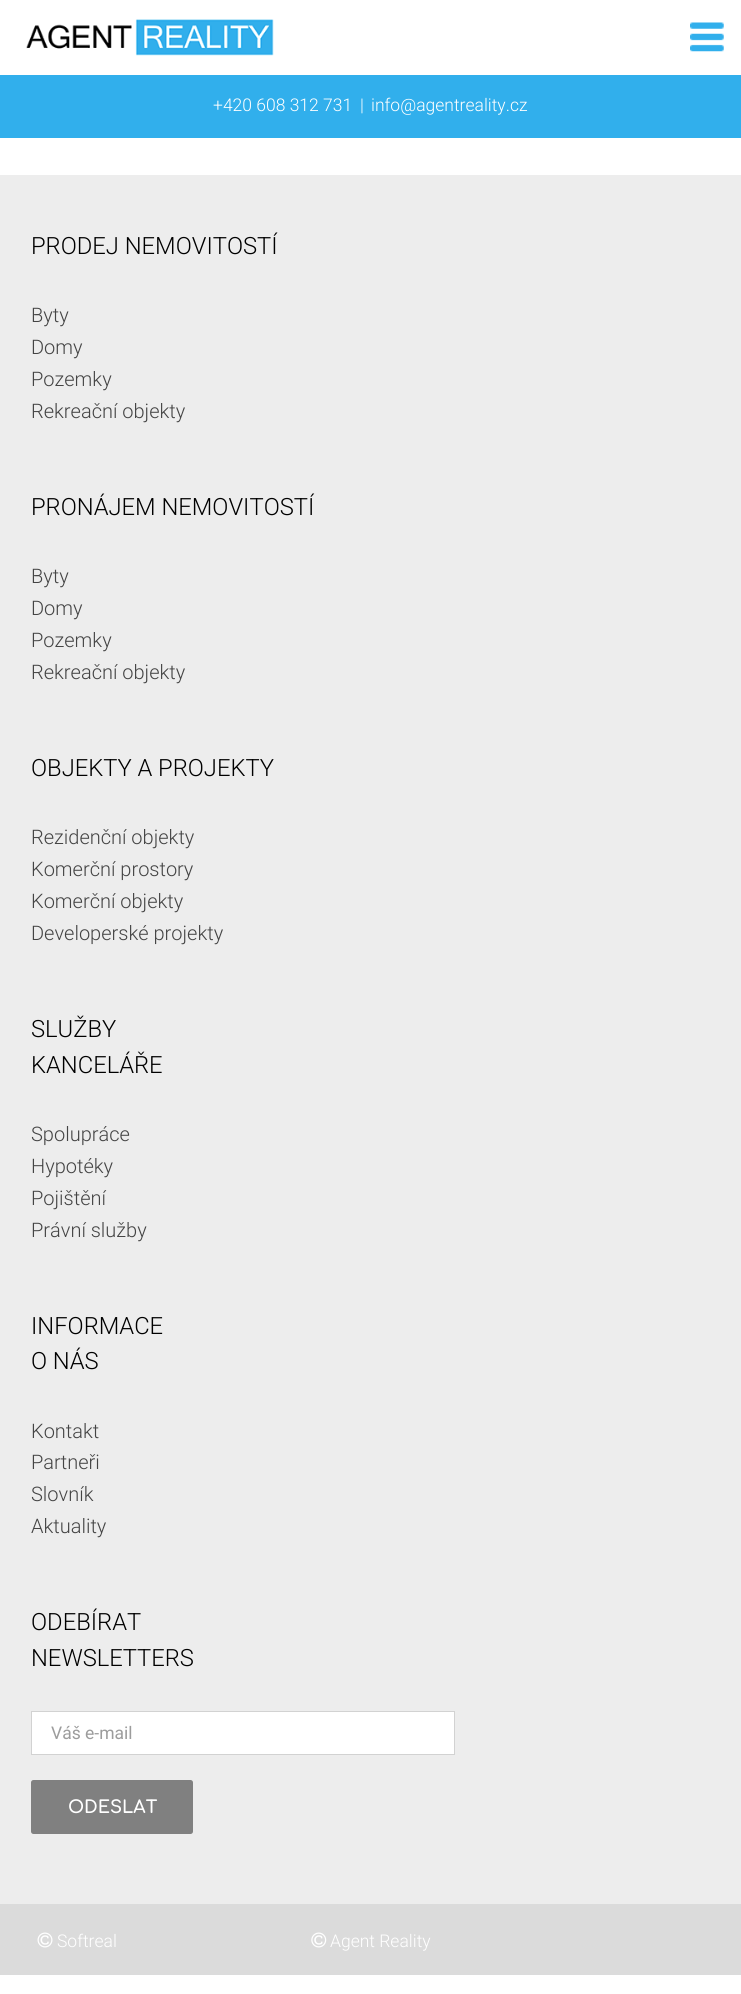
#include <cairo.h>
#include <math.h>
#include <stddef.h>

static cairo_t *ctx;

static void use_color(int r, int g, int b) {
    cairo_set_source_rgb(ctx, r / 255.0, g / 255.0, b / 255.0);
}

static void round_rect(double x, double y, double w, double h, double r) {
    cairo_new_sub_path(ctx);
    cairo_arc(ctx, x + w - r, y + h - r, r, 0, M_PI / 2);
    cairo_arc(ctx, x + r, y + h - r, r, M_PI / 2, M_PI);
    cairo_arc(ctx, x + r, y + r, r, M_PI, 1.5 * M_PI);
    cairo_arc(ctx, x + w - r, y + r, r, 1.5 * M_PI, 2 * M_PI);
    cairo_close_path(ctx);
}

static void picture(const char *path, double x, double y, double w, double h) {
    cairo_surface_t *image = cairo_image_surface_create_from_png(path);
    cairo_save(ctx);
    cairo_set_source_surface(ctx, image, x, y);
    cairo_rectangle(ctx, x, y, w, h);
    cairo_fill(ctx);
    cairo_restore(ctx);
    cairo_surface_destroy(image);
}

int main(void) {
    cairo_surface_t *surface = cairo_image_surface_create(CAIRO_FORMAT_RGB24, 741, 1994);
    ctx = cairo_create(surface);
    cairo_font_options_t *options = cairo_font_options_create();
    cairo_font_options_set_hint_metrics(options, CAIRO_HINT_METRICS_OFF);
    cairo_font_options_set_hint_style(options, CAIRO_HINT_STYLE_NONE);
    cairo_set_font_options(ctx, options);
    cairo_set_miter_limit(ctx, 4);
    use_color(255, 255, 255);
    cairo_paint(ctx);
    picture("img1.png", 26, 19, 248, 37);
    picture("img2.png", 690, 22, 34, 30);
    use_color(49, 175, 236);
    cairo_rectangle(ctx, 0, 75, 741, 63);
    cairo_fill(ctx);
    cairo_select_font_face(ctx, "Roboto Light", CAIRO_FONT_SLANT_NORMAL, CAIRO_FONT_WEIGHT_NORMAL);
    cairo_set_font_size(ctx, 17.5);
    use_color(255, 255, 255);
    cairo_move_to(ctx, 213, 111);
    cairo_show_text(ctx, "+420 608 312 731");
    cairo_move_to(ctx, 360, 111);
    cairo_show_text(ctx, "|");
    cairo_move_to(ctx, 371, 111);
    cairo_show_text(ctx, "info@agentreality.cz");
    use_color(237, 237, 237);
    cairo_rectangle(ctx, 0, 175, 741, 1729);
    cairo_fill(ctx);
    cairo_set_font_size(ctx, 23.75);
    use_color(0, 0, 0);
    cairo_move_to(ctx, 31, 254);
    cairo_show_text(ctx, "PRODEJ NEMOVITOSTÍ");
    cairo_set_font_size(ctx, 20);
    use_color(68, 68, 68);
    cairo_move_to(ctx, 31, 322);
    cairo_show_text(ctx, "Byty");
    cairo_move_to(ctx, 31, 354);
    cairo_show_text(ctx, "Domy");
    cairo_move_to(ctx, 31, 386);
    cairo_show_text(ctx, "Pozemky");
    cairo_move_to(ctx, 31, 418);
    cairo_show_text(ctx, "Rekreační objekty");
    cairo_set_font_size(ctx, 23.75);
    use_color(0, 0, 0);
    cairo_move_to(ctx, 31, 515);
    cairo_show_text(ctx, "PRONÁJEM NEMOVITOSTÍ");
    cairo_set_font_size(ctx, 20);
    use_color(68, 68, 68);
    cairo_move_to(ctx, 31, 583);
    cairo_show_text(ctx, "Byty");
    cairo_move_to(ctx, 31, 615);
    cairo_show_text(ctx, "Domy");
    cairo_move_to(ctx, 31, 647);
    cairo_show_text(ctx, "Pozemky");
    cairo_move_to(ctx, 31, 679);
    cairo_show_text(ctx, "Rekreační objekty");
    cairo_set_font_size(ctx, 23.75);
    use_color(0, 0, 0);
    cairo_move_to(ctx, 31, 776);
    cairo_show_text(ctx, "OBJEKTY A PROJEKTY");
    cairo_set_font_size(ctx, 20);
    use_color(68, 68, 68);
    cairo_move_to(ctx, 31, 844);
    cairo_show_text(ctx, "Rezidenční objekty");
    cairo_move_to(ctx, 31, 876);
    cairo_show_text(ctx, "Komerční prostory");
    cairo_move_to(ctx, 31, 908);
    cairo_show_text(ctx, "Komerční objekty");
    cairo_move_to(ctx, 31, 940);
    cairo_show_text(ctx, "Developerské projekty");
    cairo_set_font_size(ctx, 23.75);
    use_color(0, 0, 0);
    cairo_move_to(ctx, 31, 1037);
    cairo_show_text(ctx, "SLUŽBY");
    cairo_move_to(ctx, 31, 1073);
    cairo_show_text(ctx, "KANCELÁŘE");
    cairo_set_font_size(ctx, 20);
    use_color(68, 68, 68);
    cairo_move_to(ctx, 31, 1141);
    cairo_show_text(ctx, "Spolupráce");
    cairo_move_to(ctx, 31, 1173);
    cairo_show_text(ctx, "Hypotéky");
    cairo_move_to(ctx, 31, 1205);
    cairo_show_text(ctx, "Pojištění");
    cairo_move_to(ctx, 31, 1237);
    cairo_show_text(ctx, "Právní služby");
    cairo_set_font_size(ctx, 23.75);
    use_color(0, 0, 0);
    cairo_move_to(ctx, 31, 1334);
    cairo_show_text(ctx, "INFORMACE");
    cairo_move_to(ctx, 31, 1369);
    cairo_show_text(ctx, "O NÁS");
    cairo_set_font_size(ctx, 20);
    use_color(68, 68, 68);
    cairo_move_to(ctx, 31, 1438);
    cairo_show_text(ctx, "Kontakt");
    cairo_move_to(ctx, 31, 1469);
    cairo_show_text(ctx, "Partneři");
    cairo_move_to(ctx, 31, 1501);
    cairo_show_text(ctx, "Slovník");
    cairo_move_to(ctx, 31, 1533);
    cairo_show_text(ctx, "Aktuality");
    cairo_set_font_size(ctx, 23.75);
    use_color(0, 0, 0);
    cairo_move_to(ctx, 31, 1630);
    cairo_show_text(ctx, "ODEBÍRAT");
    cairo_move_to(ctx, 31, 1666);
    cairo_show_text(ctx, "NEWSLETTERS");
    use_color(255, 255, 255);
    cairo_rectangle(ctx, 31.5, 1711.5, 423, 43);
    cairo_fill_preserve(ctx);
    use_color(210, 210, 210);
    cairo_set_line_width(ctx, 1);
    cairo_stroke(ctx);
    cairo_select_font_face(ctx, "Roboto", CAIRO_FONT_SLANT_NORMAL, CAIRO_FONT_WEIGHT_NORMAL);
    cairo_set_font_size(ctx, 17.5);
    use_color(156, 156, 156);
    cairo_move_to(ctx, 51, 1739);
    cairo_show_text(ctx, "Váš e-mail");
    use_color(128, 128, 128);
    round_rect(31, 1780, 162, 54, 2.5);
    cairo_fill(ctx);
    cairo_select_font_face(ctx, "Comfortaa", CAIRO_FONT_SLANT_NORMAL, CAIRO_FONT_WEIGHT_BOLD);
    use_color(255, 255, 255);
    cairo_move_to(ctx, 68, 1813);
    cairo_show_text(ctx, "ODESLAT");
    use_color(219, 219, 219);
    cairo_rectangle(ctx, 0, 1904, 741, 71);
    cairo_fill(ctx);
    picture("img3.png", 37, 1932, 16, 16);
    cairo_select_font_face(ctx, "Roboto Light", CAIRO_FONT_SLANT_NORMAL, CAIRO_FONT_WEIGHT_NORMAL);
    use_color(255, 255, 255);
    cairo_move_to(ctx, 57, 1947);
    cairo_show_text(ctx, "Softreal");
    picture("img4.png", 311, 1932, 16, 16);
    cairo_move_to(ctx, 330, 1947);
    cairo_show_text(ctx, "Agent Reality");
    cairo_surface_write_to_png(surface, "result.png");
    cairo_font_options_destroy(options);
    cairo_destroy(ctx);
    cairo_surface_destroy(surface);
    return 0;
}
